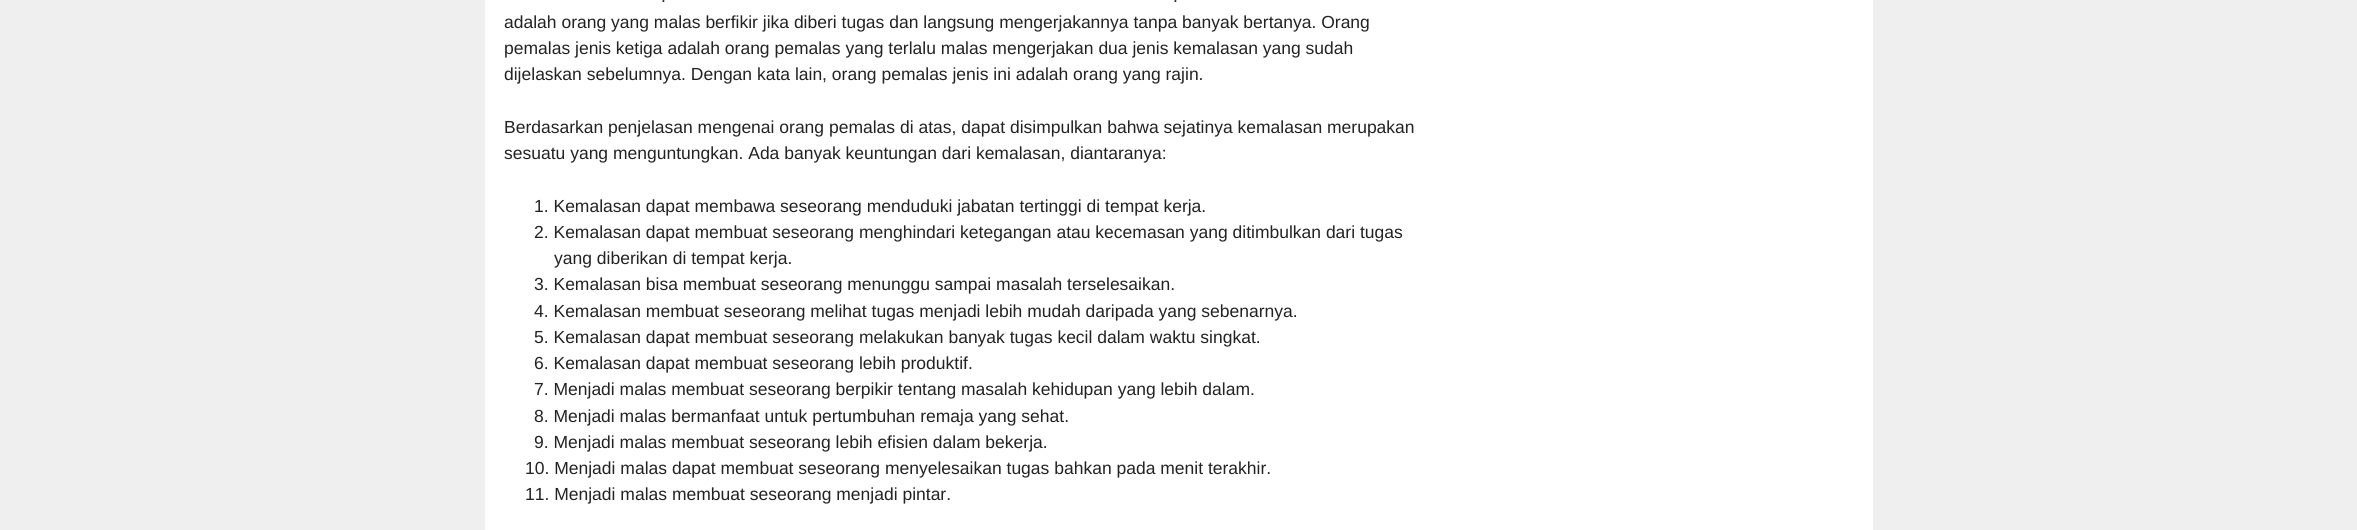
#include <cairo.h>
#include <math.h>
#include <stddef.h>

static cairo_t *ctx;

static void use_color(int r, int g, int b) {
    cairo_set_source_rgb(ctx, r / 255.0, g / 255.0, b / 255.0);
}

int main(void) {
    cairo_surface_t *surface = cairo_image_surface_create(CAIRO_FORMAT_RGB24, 2357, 530);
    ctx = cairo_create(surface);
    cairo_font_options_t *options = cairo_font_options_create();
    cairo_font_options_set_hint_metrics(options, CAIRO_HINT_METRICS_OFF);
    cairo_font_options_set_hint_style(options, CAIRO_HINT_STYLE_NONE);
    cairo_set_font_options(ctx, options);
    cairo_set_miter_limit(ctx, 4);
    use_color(239, 239, 239);
    cairo_paint(ctx);
    use_color(255, 255, 255);
    cairo_rectangle(ctx, 485, 0, 1388, 530);
    cairo_fill(ctx);
    cairo_select_font_face(ctx, "Liberation Sans", CAIRO_FONT_SLANT_NORMAL, CAIRO_FONT_WEIGHT_NORMAL);
    cairo_set_font_size(ctx, 17.5);
    use_color(34, 34, 34);
    cairo_move_to(ctx, 661, 2);
    cairo_show_text(ctx, ".");
    cairo_move_to(ctx, 1173, 2);
    cairo_show_text(ctx, ".");
    cairo_move_to(ctx, 504, 28);
    cairo_show_text(ctx, "adalah orang yang malas berfikir jika diberi tugas dan langsung mengerjakannya tanpa banyak bertanya. Orang");
    cairo_move_to(ctx, 504, 54);
    cairo_show_text(ctx, "pemalas jenis ketiga adalah orang pemalas yang terlalu malas mengerjakan dua jenis kemalasan yang sudah");
    cairo_move_to(ctx, 504, 80);
    cairo_show_text(ctx, "dijelaskan sebelumnya. Dengan kata lain, orang pemalas jenis ini adalah orang yang rajin.");
    cairo_move_to(ctx, 504, 133);
    cairo_show_text(ctx, "Berdasarkan penjelasan mengenai orang pemalas di atas, dapat disimpulkan bahwa sejatinya kemalasan merupakan");
    cairo_move_to(ctx, 504, 159);
    cairo_show_text(ctx, "sesuatu yang menguntungkan. Ada banyak keuntungan dari kemalasan, diantaranya:");
    cairo_move_to(ctx, 534, 212);
    cairo_show_text(ctx, "1. Kemalasan dapat membawa seseorang menduduki jabatan tertinggi di tempat kerja.");
    cairo_move_to(ctx, 534, 238);
    cairo_show_text(ctx, "2. Kemalasan dapat membuat seseorang menghindari ketegangan atau kecemasan yang ditimbulkan dari tugas");
    cairo_move_to(ctx, 554, 264);
    cairo_show_text(ctx, "yang diberikan di tempat kerja.");
    cairo_move_to(ctx, 534, 290);
    cairo_show_text(ctx, "3. Kemalasan bisa membuat seseorang menunggu sampai masalah terselesaikan.");
    cairo_move_to(ctx, 534, 317);
    cairo_show_text(ctx, "4. Kemalasan membuat seseorang melihat tugas menjadi lebih mudah daripada yang sebenarnya.");
    cairo_move_to(ctx, 534, 343);
    cairo_show_text(ctx, "5. Kemalasan dapat membuat seseorang melakukan banyak tugas kecil dalam waktu singkat.");
    cairo_move_to(ctx, 534, 369);
    cairo_show_text(ctx, "6. Kemalasan dapat membuat seseorang lebih produktif.");
    cairo_move_to(ctx, 534, 395);
    cairo_show_text(ctx, "7. Menjadi malas membuat seseorang berpikir tentang masalah kehidupan yang lebih dalam.");
    cairo_move_to(ctx, 534, 422);
    cairo_show_text(ctx, "8. Menjadi malas bermanfaat untuk pertumbuhan remaja yang sehat.");
    cairo_move_to(ctx, 534, 448);
    cairo_show_text(ctx, "9. Menjadi malas membuat seseorang lebih efisien dalam bekerja.");
    cairo_move_to(ctx, 525, 474);
    cairo_show_text(ctx, "10. Menjadi malas dapat membuat seseorang menyelesaikan tugas bahkan pada menit terakhir.");
    cairo_move_to(ctx, 525, 500);
    cairo_show_text(ctx, "11. Menjadi malas membuat seseorang menjadi pintar.");
    cairo_surface_write_to_png(surface, "result.png");
    cairo_font_options_destroy(options);
    cairo_destroy(ctx);
    cairo_surface_destroy(surface);
    return 0;
}
